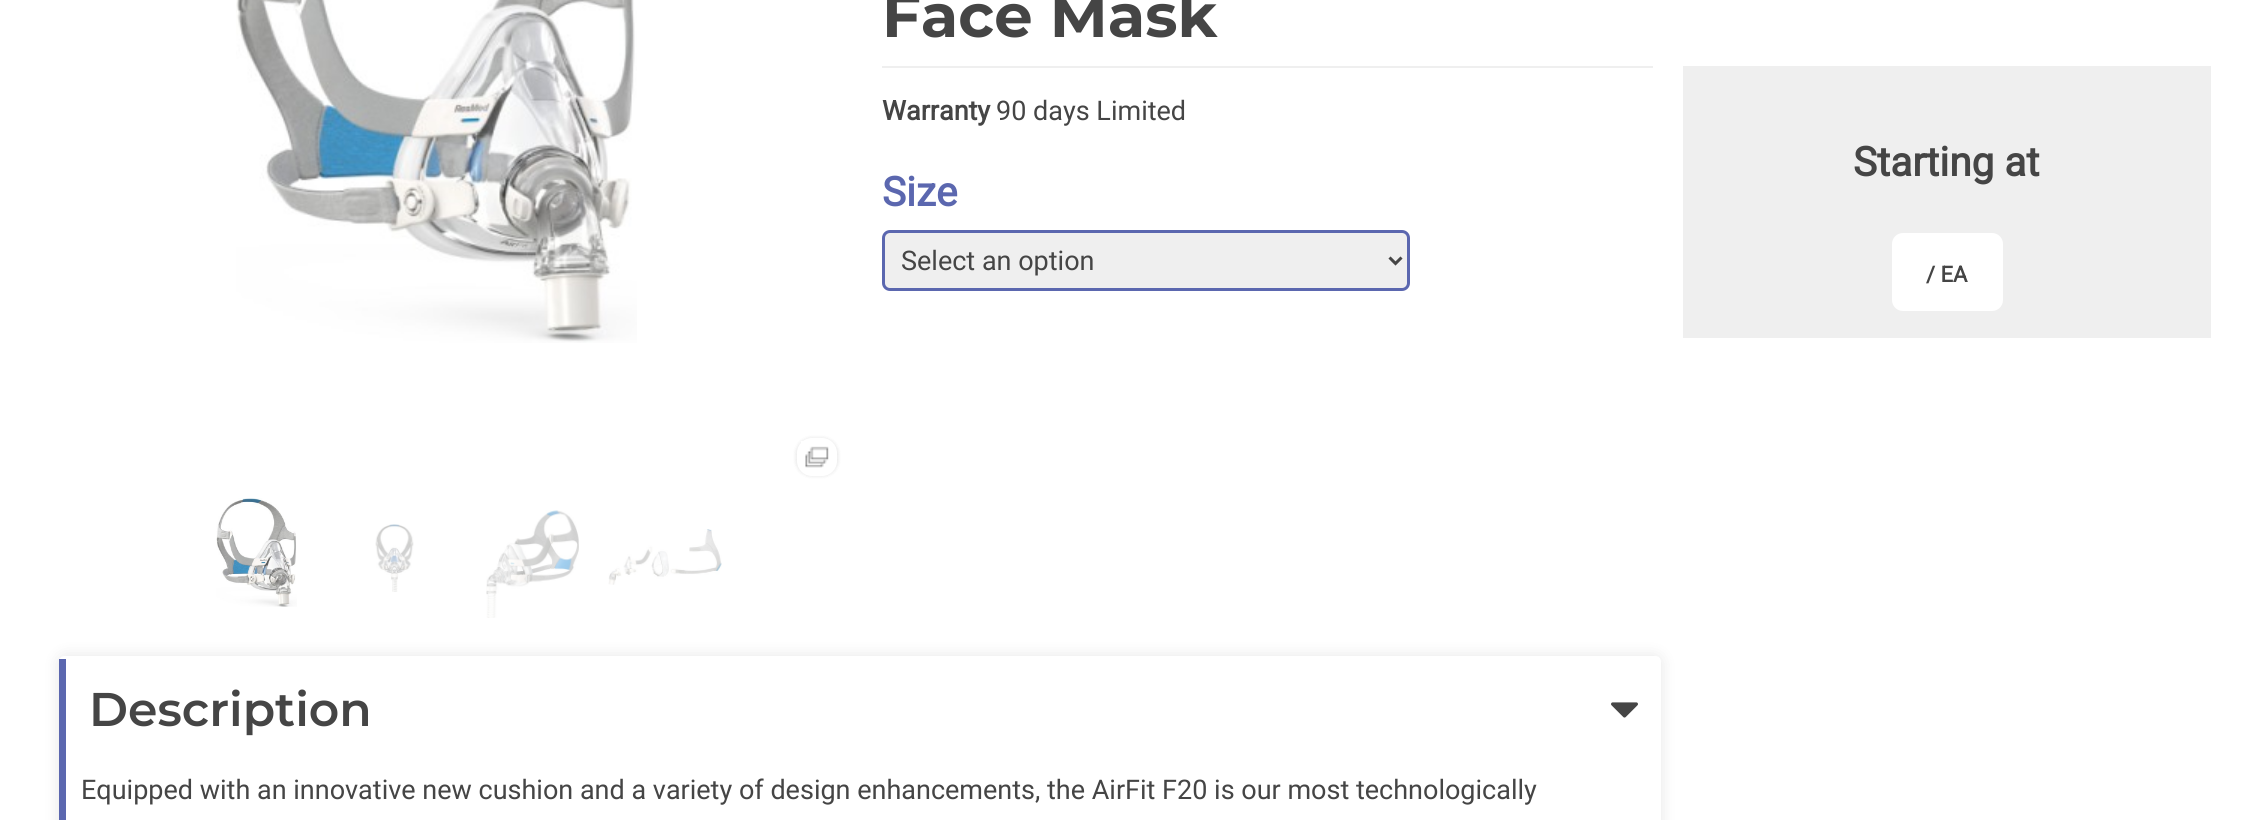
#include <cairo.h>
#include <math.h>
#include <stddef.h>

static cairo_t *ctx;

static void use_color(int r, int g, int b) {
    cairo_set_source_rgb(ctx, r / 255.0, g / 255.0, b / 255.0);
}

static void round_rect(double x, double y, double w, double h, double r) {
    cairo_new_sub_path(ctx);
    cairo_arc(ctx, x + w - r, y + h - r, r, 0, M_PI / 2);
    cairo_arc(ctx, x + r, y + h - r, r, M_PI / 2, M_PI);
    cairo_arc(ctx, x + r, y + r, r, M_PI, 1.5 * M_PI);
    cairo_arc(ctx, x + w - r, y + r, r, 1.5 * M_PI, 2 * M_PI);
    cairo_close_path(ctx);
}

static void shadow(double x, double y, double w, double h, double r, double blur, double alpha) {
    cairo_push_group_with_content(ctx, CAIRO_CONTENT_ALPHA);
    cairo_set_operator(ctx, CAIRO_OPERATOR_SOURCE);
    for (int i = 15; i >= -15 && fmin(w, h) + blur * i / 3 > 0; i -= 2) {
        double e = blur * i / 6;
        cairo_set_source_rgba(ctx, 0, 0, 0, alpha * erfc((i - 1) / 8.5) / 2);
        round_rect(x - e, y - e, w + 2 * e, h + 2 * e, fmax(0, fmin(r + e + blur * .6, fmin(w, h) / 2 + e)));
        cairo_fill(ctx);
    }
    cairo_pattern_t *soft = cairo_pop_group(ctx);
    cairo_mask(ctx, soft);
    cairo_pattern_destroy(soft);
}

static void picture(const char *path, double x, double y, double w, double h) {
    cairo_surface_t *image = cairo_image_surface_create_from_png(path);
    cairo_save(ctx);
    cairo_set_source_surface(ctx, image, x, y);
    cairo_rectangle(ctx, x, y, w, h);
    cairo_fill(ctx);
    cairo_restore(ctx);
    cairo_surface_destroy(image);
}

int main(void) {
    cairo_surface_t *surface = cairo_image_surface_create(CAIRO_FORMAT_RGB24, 2261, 820);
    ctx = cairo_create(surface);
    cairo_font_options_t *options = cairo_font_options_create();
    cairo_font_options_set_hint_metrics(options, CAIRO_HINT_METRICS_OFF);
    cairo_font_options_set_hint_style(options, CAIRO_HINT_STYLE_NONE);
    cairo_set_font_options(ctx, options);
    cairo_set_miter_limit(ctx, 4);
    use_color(255, 255, 255);
    cairo_paint(ctx);
    picture("img1.png", 236, 0, 401, 343);
    use_color(0, 0, 0);
    shadow(795, 437, 44, 40, 17, 1.5, 0.07);
    use_color(255, 255, 255);
    round_rect(797, 438, 40, 38, 15);
    cairo_fill(ctx);
    picture("img2.png", 801, 441, 28, 27);
    picture("img3.png", 216, 498, 81, 109);
    picture("img4.png", 375, 524, 39, 68);
    picture("img5.png", 486, 510, 93, 108);
    picture("img6.png", 608, 529, 114, 56);
    use_color(239, 239, 239);
    cairo_rectangle(ctx, 882, 66, 771, 2);
    cairo_fill(ctx);
    cairo_select_font_face(ctx, "Montserrat", CAIRO_FONT_SLANT_NORMAL, CAIRO_FONT_WEIGHT_BOLD);
    cairo_set_font_size(ctx, 60.75);
    use_color(69, 69, 69);
    cairo_move_to(ctx, 882, 37);
    cairo_show_text(ctx, "Face Mask");
    cairo_select_font_face(ctx, "Roboto", CAIRO_FONT_SLANT_NORMAL, CAIRO_FONT_WEIGHT_BOLD);
    cairo_set_font_size(ctx, 27);
    cairo_move_to(ctx, 882, 120);
    cairo_show_text(ctx, "Warranty");
    cairo_select_font_face(ctx, "Roboto", CAIRO_FONT_SLANT_NORMAL, CAIRO_FONT_WEIGHT_NORMAL);
    cairo_move_to(ctx, 996, 120);
    cairo_show_text(ctx, "90 days Limited");
    cairo_select_font_face(ctx, "Roboto", CAIRO_FONT_SLANT_NORMAL, CAIRO_FONT_WEIGHT_BOLD);
    cairo_set_font_size(ctx, 40.5);
    use_color(91, 103, 175);
    cairo_move_to(ctx, 882, 206);
    cairo_show_text(ctx, "Size");
    use_color(239, 239, 239);
    round_rect(883.5, 231.5, 525, 58, 6.5);
    cairo_fill_preserve(ctx);
    use_color(91, 103, 175);
    cairo_set_line_width(ctx, 3);
    cairo_stroke(ctx);
    cairo_new_path(ctx);
    cairo_move_to(ctx, 1389.5, 257.5);
    cairo_line_to(ctx, 1395.5, 263.5);
    cairo_line_to(ctx, 1401.5, 257.5);
    use_color(69, 69, 69);
    cairo_stroke(ctx);
    cairo_select_font_face(ctx, "Roboto", CAIRO_FONT_SLANT_NORMAL, CAIRO_FONT_WEIGHT_NORMAL);
    cairo_set_font_size(ctx, 27);
    cairo_move_to(ctx, 901, 270);
    cairo_show_text(ctx, "Select an option");
    cairo_save(ctx);
    cairo_set_fill_rule(ctx, CAIRO_FILL_RULE_EVEN_ODD);
    cairo_new_path(ctx);
    cairo_move_to(ctx, 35, 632);
    cairo_line_to(ctx, 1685, 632);
    cairo_line_to(ctx, 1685, 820);
    cairo_line_to(ctx, 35, 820);
    cairo_close_path(ctx);
    cairo_move_to(ctx, 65, 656);
    cairo_line_to(ctx, 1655, 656);
    cairo_curve_to(ctx, 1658.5, 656, 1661, 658.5, 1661, 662);
    cairo_line_to(ctx, 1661, 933);
    cairo_curve_to(ctx, 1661, 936.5, 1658.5, 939, 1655, 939);
    cairo_line_to(ctx, 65, 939);
    cairo_curve_to(ctx, 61.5, 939, 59, 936.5, 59, 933);
    cairo_line_to(ctx, 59, 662);
    cairo_curve_to(ctx, 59, 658.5, 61.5, 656, 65, 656);
    cairo_close_path(ctx);
    cairo_clip(ctx);
    use_color(0, 0, 0);
    shadow(59, 656, 1602, 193, 6, 7.5, 0.1);
    cairo_restore(ctx);
    use_color(91, 103, 175);
    cairo_rectangle(ctx, 59, 659, 7, 161);
    cairo_fill(ctx);
    cairo_select_font_face(ctx, "Montserrat SemiBold", CAIRO_FONT_SLANT_NORMAL, CAIRO_FONT_WEIGHT_NORMAL);
    cairo_set_font_size(ctx, 47.25);
    use_color(69, 69, 69);
    cairo_move_to(ctx, 89, 726);
    cairo_show_text(ctx, "Description");
    picture("img7.png", 1611, 702, 27, 16);
    cairo_select_font_face(ctx, "Roboto", CAIRO_FONT_SLANT_NORMAL, CAIRO_FONT_WEIGHT_NORMAL);
    cairo_set_font_size(ctx, 27);
    cairo_move_to(ctx, 81, 799);
    cairo_show_text(ctx, "Equipped with an innovative new cushion and a variety of design enhancements, the AirFit F20 is our most technologically");
    use_color(239, 239, 239);
    cairo_rectangle(ctx, 1683, 66, 528, 272);
    cairo_fill(ctx);
    cairo_select_font_face(ctx, "Roboto", CAIRO_FONT_SLANT_NORMAL, CAIRO_FONT_WEIGHT_BOLD);
    cairo_set_font_size(ctx, 40.5);
    use_color(69, 69, 69);
    cairo_move_to(ctx, 1853, 176);
    cairo_show_text(ctx, "Starting at");
    use_color(255, 255, 255);
    round_rect(1892, 233, 111, 78, 11);
    cairo_fill(ctx);
    cairo_set_font_size(ctx, 22);
    use_color(69, 69, 69);
    cairo_move_to(ctx, 1926, 282);
    cairo_show_text(ctx, "/ EA");
    cairo_surface_write_to_png(surface, "result.png");
    cairo_font_options_destroy(options);
    cairo_destroy(ctx);
    cairo_surface_destroy(surface);
    return 0;
}
